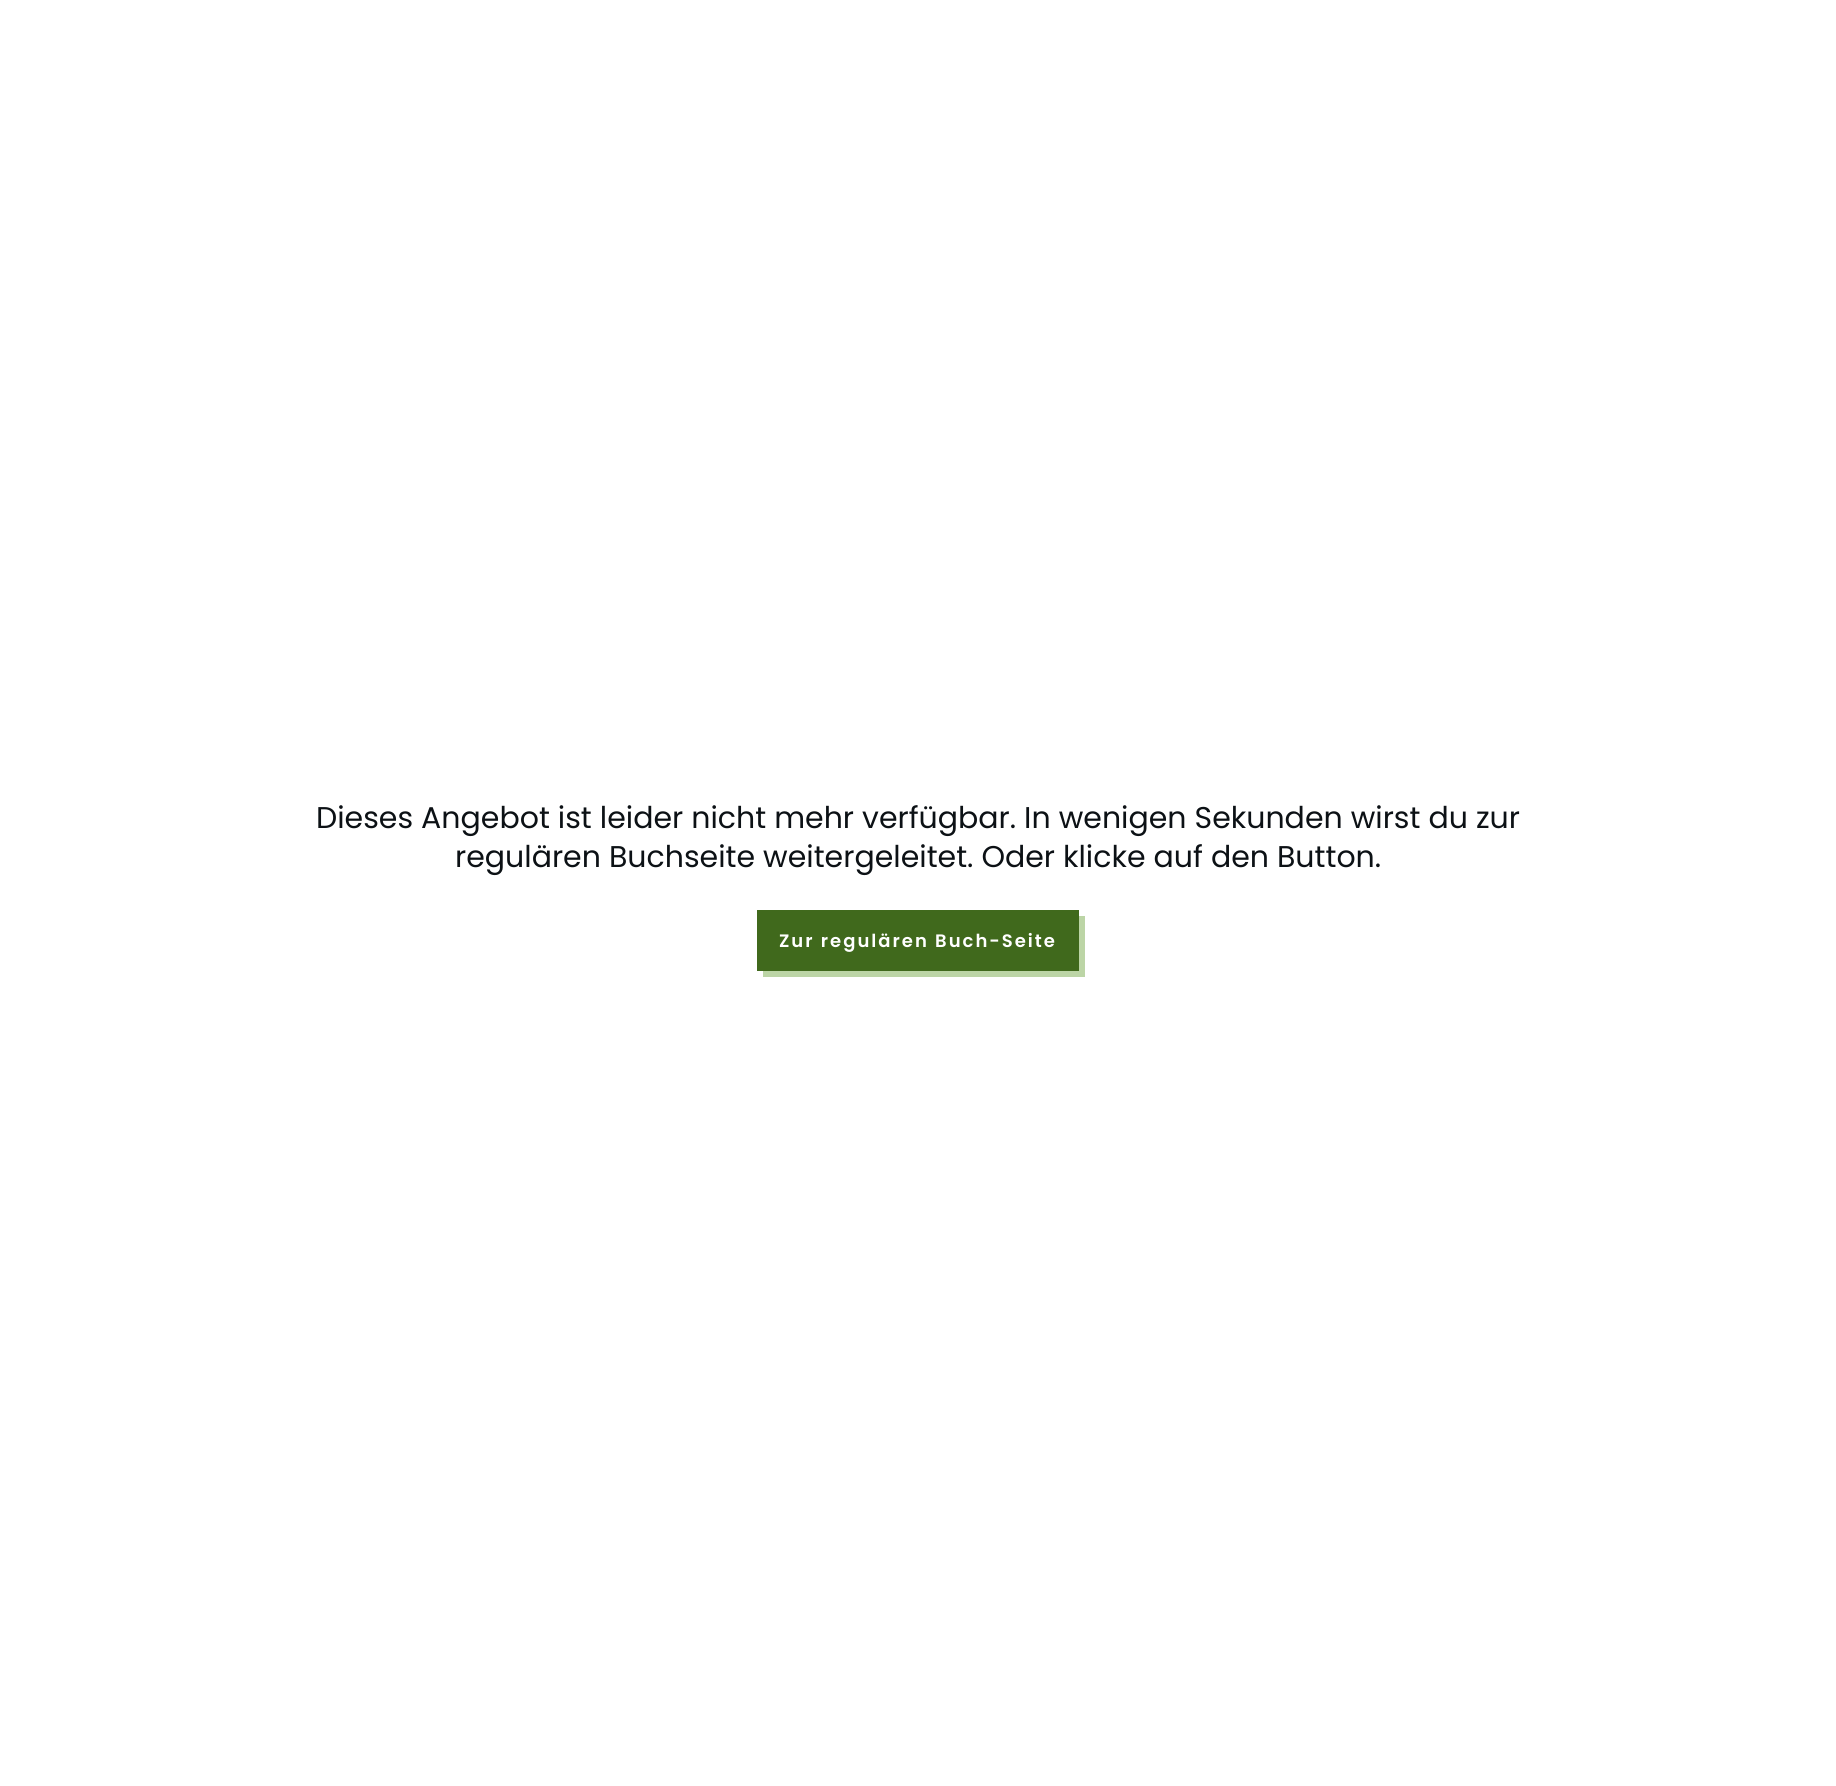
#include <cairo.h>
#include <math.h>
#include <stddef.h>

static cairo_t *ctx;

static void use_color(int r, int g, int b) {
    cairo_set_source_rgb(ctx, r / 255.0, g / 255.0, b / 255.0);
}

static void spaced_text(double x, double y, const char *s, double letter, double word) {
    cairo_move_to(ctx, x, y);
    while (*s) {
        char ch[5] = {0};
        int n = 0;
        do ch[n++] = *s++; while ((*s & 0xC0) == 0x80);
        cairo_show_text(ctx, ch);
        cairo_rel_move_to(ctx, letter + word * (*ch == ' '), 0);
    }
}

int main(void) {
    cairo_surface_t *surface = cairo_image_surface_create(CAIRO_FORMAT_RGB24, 1836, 1786);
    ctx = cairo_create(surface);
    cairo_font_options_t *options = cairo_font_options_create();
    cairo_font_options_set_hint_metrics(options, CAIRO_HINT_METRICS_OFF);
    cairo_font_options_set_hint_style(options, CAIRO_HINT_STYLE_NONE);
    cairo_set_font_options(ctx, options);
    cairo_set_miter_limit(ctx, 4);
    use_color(255, 255, 255);
    cairo_paint(ctx);
    cairo_select_font_face(ctx, "Poppins", CAIRO_FONT_SLANT_NORMAL, CAIRO_FONT_WEIGHT_NORMAL);
    cairo_set_font_size(ctx, 30);
    use_color(12, 17, 21);
    cairo_move_to(ctx, 316, 828);
    cairo_show_text(ctx, "Dieses Angebot ist leider nicht mehr verfügbar. In wenigen Sekunden wirst du zur");
    cairo_move_to(ctx, 455, 867);
    cairo_show_text(ctx, "regulären Buchseite weitergeleitet. Oder klicke auf den Button.");
    use_color(188, 213, 166);
    cairo_new_path(ctx);
    cairo_move_to(ctx, 763, 971);
    cairo_line_to(ctx, 763, 977);
    cairo_line_to(ctx, 1085, 977);
    cairo_line_to(ctx, 1085, 916);
    cairo_line_to(ctx, 1079, 916);
    cairo_line_to(ctx, 1079, 971);
    cairo_close_path(ctx);
    cairo_fill(ctx);
    use_color(64, 105, 28);
    cairo_rectangle(ctx, 757, 910, 322, 61);
    cairo_fill(ctx);
    cairo_select_font_face(ctx, "Poppins SemiBold", CAIRO_FONT_SLANT_NORMAL, CAIRO_FONT_WEIGHT_NORMAL);
    cairo_set_font_size(ctx, 18);
    use_color(255, 255, 255);
    spaced_text(779, 947, "Zur regulären Buch-Seite", 2, 0);
    cairo_surface_write_to_png(surface, "result.png");
    cairo_font_options_destroy(options);
    cairo_destroy(ctx);
    cairo_surface_destroy(surface);
    return 0;
}
